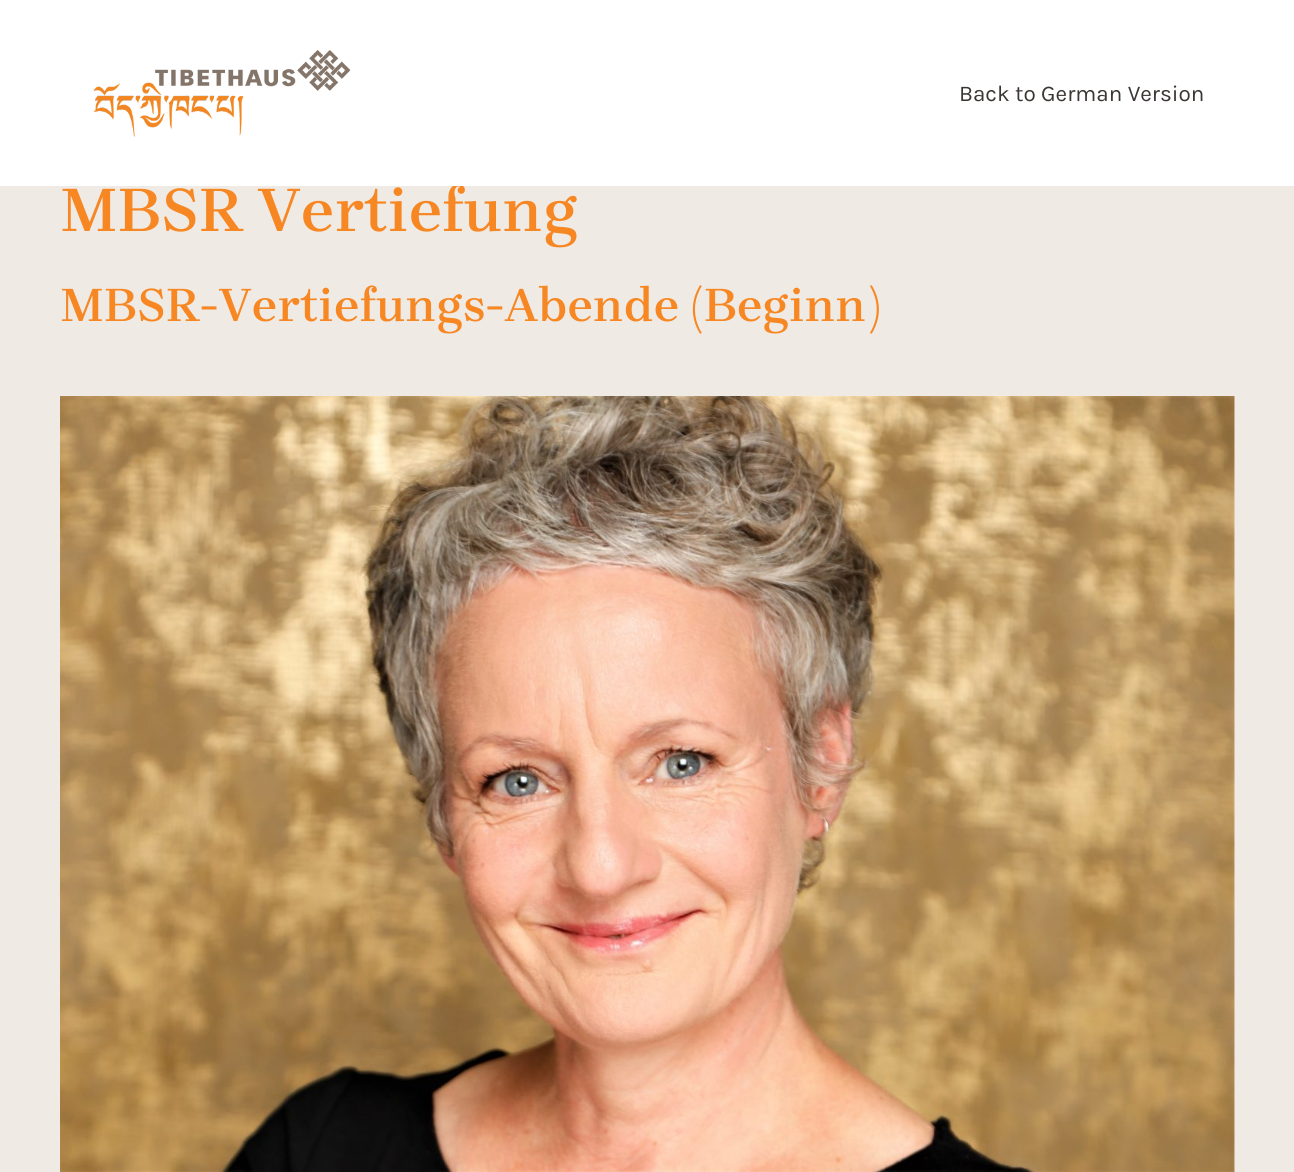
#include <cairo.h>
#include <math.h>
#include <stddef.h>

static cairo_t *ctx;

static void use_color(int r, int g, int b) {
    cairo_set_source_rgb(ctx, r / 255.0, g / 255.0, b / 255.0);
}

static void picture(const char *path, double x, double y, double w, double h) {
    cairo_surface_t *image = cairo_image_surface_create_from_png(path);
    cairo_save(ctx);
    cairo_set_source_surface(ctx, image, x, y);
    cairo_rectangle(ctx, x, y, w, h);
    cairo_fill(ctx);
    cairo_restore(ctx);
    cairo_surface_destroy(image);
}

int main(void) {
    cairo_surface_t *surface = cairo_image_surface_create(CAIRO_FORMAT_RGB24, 1294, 1172);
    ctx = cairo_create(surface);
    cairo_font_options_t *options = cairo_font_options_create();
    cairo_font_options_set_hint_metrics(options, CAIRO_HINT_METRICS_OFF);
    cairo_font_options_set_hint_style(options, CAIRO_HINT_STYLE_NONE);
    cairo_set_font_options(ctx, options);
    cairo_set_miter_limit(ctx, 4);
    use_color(240, 234, 229);
    cairo_paint(ctx);
    cairo_select_font_face(ctx, "Brygada 1918 SemiBold", CAIRO_FONT_SLANT_NORMAL, CAIRO_FONT_WEIGHT_NORMAL);
    cairo_set_font_size(ctx, 63);
    use_color(246, 135, 35);
    cairo_move_to(ctx, 60, 231);
    cairo_show_text(ctx, "MBSR Vertiefung");
    use_color(255, 255, 255);
    cairo_rectangle(ctx, 0, 0, 1294, 186);
    cairo_fill(ctx);
    picture("img1.png", 93, 50, 258, 87);
    cairo_select_font_face(ctx, "Karla", CAIRO_FONT_SLANT_NORMAL, CAIRO_FONT_WEIGHT_NORMAL);
    cairo_set_font_size(ctx, 22.5);
    use_color(59, 54, 51);
    cairo_move_to(ctx, 959, 101);
    cairo_show_text(ctx, "Back to German Version");
    cairo_select_font_face(ctx, "Brygada 1918 SemiBold", CAIRO_FONT_SLANT_NORMAL, CAIRO_FONT_WEIGHT_NORMAL);
    cairo_set_font_size(ctx, 48);
    use_color(246, 135, 35);
    cairo_move_to(ctx, 60, 321);
    cairo_show_text(ctx, "MBSR-Vertiefungs-Abende (Beginn)");
    picture("img2.png", 60, 396, 1175, 776);
    cairo_surface_write_to_png(surface, "result.png");
    cairo_font_options_destroy(options);
    cairo_destroy(ctx);
    cairo_surface_destroy(surface);
    return 0;
}
